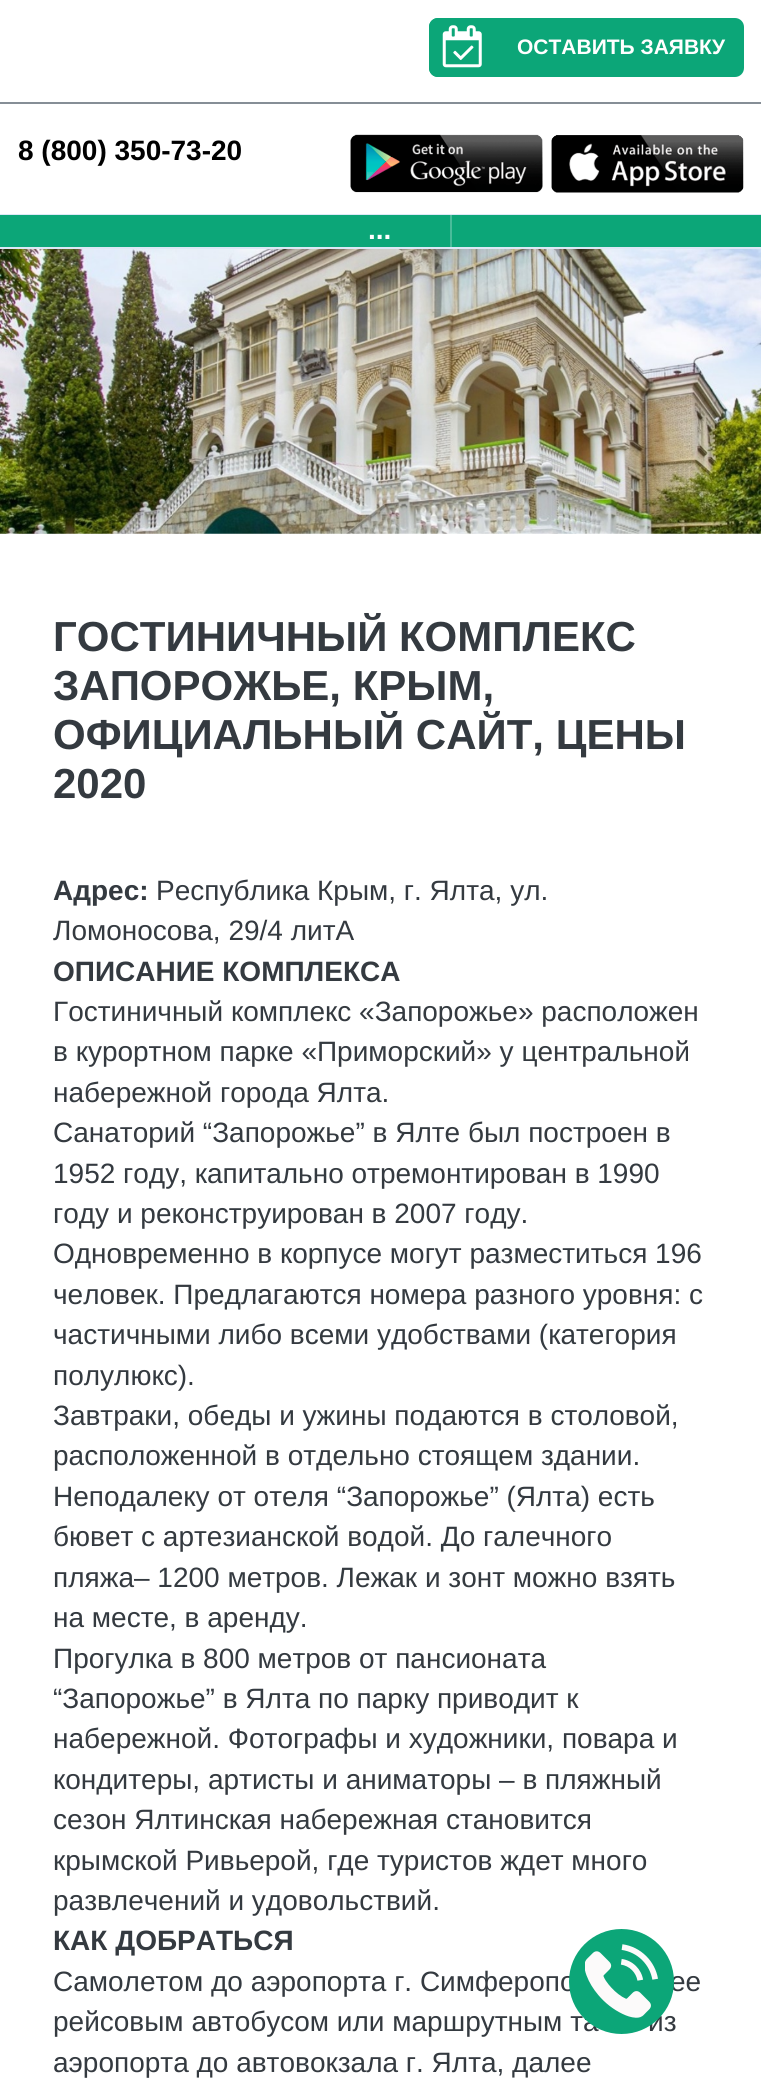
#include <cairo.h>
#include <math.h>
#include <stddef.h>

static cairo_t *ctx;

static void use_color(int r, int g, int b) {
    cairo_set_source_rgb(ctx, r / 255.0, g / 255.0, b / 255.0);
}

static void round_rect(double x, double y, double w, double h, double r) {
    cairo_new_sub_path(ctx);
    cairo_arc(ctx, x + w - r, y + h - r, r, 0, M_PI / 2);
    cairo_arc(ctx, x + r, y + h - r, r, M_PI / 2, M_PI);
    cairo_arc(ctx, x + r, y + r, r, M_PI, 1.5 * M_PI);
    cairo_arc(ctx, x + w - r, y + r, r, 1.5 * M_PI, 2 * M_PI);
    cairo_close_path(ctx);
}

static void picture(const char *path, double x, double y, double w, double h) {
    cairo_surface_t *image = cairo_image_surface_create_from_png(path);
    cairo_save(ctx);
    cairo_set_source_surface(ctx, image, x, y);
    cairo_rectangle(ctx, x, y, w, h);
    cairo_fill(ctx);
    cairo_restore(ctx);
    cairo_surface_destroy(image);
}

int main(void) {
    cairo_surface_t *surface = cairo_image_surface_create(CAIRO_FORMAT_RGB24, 761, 2085);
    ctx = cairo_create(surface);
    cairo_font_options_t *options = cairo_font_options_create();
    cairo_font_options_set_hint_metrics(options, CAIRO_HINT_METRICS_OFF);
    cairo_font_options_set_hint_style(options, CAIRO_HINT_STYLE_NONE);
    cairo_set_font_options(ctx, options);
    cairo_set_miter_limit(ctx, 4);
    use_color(255, 255, 255);
    cairo_paint(ctx);
    use_color(134, 142, 150);
    cairo_rectangle(ctx, 0, 102, 761, 2);
    cairo_fill(ctx);
    use_color(12, 166, 120);
    round_rect(429, 18, 315, 59, 9);
    cairo_fill(ctx);
    cairo_new_path(ctx);
    cairo_move_to(ctx, 438, 18);
    cairo_line_to(ctx, 499, 18);
    cairo_line_to(ctx, 499, 77);
    cairo_line_to(ctx, 438, 77);
    cairo_curve_to(ctx, 433, 77, 429, 73, 429, 68);
    cairo_line_to(ctx, 429, 27);
    cairo_curve_to(ctx, 429, 22, 433, 18, 438, 18);
    cairo_close_path(ctx);
    cairo_fill(ctx);
    picture("img1.png", 442, 25, 40, 43);
    cairo_select_font_face(ctx, "Liberation Sans", CAIRO_FONT_SLANT_NORMAL, CAIRO_FONT_WEIGHT_BOLD);
    cairo_set_font_size(ctx, 21);
    use_color(255, 255, 255);
    cairo_move_to(ctx, 517, 54);
    cairo_show_text(ctx, "ОСТАВИТЬ ЗАЯВКУ");
    cairo_set_font_size(ctx, 28);
    use_color(0, 0, 0);
    cairo_move_to(ctx, 18, 160);
    cairo_show_text(ctx, "8 (800) 350-73-20");
    picture("img2.png", 350, 134, 193, 59);
    picture("img3.png", 551, 135, 193, 58);
    use_color(221, 232, 246);
    cairo_rectangle(ctx, 0, 214, 761, 1);
    cairo_fill(ctx);
    cairo_rectangle(ctx, 0, 247, 761, 2);
    cairo_fill(ctx);
    use_color(12, 166, 120);
    cairo_rectangle(ctx, 0, 215, 761, 32);
    cairo_fill(ctx);
    use_color(73, 188, 154);
    cairo_rectangle(ctx, 450, 215, 2, 32);
    cairo_fill(ctx);
    use_color(255, 255, 255);
    cairo_move_to(ctx, 368, 239);
    cairo_show_text(ctx, "...");
    picture("img4.png", 0, 249, 761, 285);
    cairo_set_font_size(ctx, 42);
    use_color(52, 58, 64);
    cairo_move_to(ctx, 53, 651);
    cairo_show_text(ctx, "ГОСТИНИЧНЫЙ КОМПЛЕКС");
    cairo_move_to(ctx, 53, 700);
    cairo_show_text(ctx, "ЗАПОРОЖЬЕ, КРЫМ,");
    cairo_move_to(ctx, 53, 749);
    cairo_show_text(ctx, "ОФИЦИАЛЬНЫЙ САЙТ, ЦЕНЫ");
    cairo_move_to(ctx, 53, 798);
    cairo_show_text(ctx, "2020");
    cairo_set_font_size(ctx, 28);
    cairo_move_to(ctx, 53, 900);
    cairo_show_text(ctx, "Адрес:");
    cairo_select_font_face(ctx, "Liberation Sans", CAIRO_FONT_SLANT_NORMAL, CAIRO_FONT_WEIGHT_NORMAL);
    cairo_move_to(ctx, 156, 900);
    cairo_show_text(ctx, "Республика Крым, г. Ялта, ул.");
    cairo_move_to(ctx, 53, 940);
    cairo_show_text(ctx, "Ломоносова, 29/4 литА");
    cairo_select_font_face(ctx, "Liberation Sans", CAIRO_FONT_SLANT_NORMAL, CAIRO_FONT_WEIGHT_BOLD);
    cairo_move_to(ctx, 53, 981);
    cairo_show_text(ctx, "ОПИСАНИЕ КОМПЛЕКСА");
    cairo_select_font_face(ctx, "Liberation Sans", CAIRO_FONT_SLANT_NORMAL, CAIRO_FONT_WEIGHT_NORMAL);
    cairo_move_to(ctx, 53, 1021);
    cairo_show_text(ctx, "Гостиничный комплекс «Запорожье» расположен");
    cairo_move_to(ctx, 53, 1061);
    cairo_show_text(ctx, "в курортном парке «Приморский» у центральной");
    cairo_move_to(ctx, 53, 1102);
    cairo_show_text(ctx, "набережной города Ялта.");
    cairo_move_to(ctx, 53, 1142);
    cairo_show_text(ctx, "Санаторий “Запорожье” в Ялте был построен в");
    cairo_move_to(ctx, 53, 1183);
    cairo_show_text(ctx, "1952 году, капитально отремонтирован в 1990");
    cairo_move_to(ctx, 53, 1223);
    cairo_show_text(ctx, "году и реконструирован в 2007 году.");
    cairo_move_to(ctx, 53, 1263);
    cairo_show_text(ctx, "Одновременно в корпусе могут разместиться 196");
    cairo_move_to(ctx, 53, 1304);
    cairo_show_text(ctx, "человек. Предлагаются номера разного уровня: с");
    cairo_move_to(ctx, 53, 1344);
    cairo_show_text(ctx, "частичными либо всеми удобствами (категория");
    cairo_move_to(ctx, 53, 1385);
    cairo_show_text(ctx, "полулюкс).");
    cairo_move_to(ctx, 53, 1425);
    cairo_show_text(ctx, "Завтраки, обеды и ужины подаются в столовой,");
    cairo_move_to(ctx, 53, 1465);
    cairo_show_text(ctx, "расположенной в отдельно стоящем здании.");
    cairo_move_to(ctx, 53, 1506);
    cairo_show_text(ctx, "Неподалеку от отеля “Запорожье” (Ялта) есть");
    cairo_move_to(ctx, 53, 1546);
    cairo_show_text(ctx, "бювет с артезианской водой. До галечного");
    cairo_move_to(ctx, 53, 1587);
    cairo_show_text(ctx, "пляжа– 1200 метров. Лежак и зонт можно взять");
    cairo_move_to(ctx, 53, 1627);
    cairo_show_text(ctx, "на месте, в аренду.");
    cairo_move_to(ctx, 53, 1668);
    cairo_show_text(ctx, "Прогулка в 800 метров от пансионата");
    cairo_move_to(ctx, 53, 1708);
    cairo_show_text(ctx, "“Запорожье” в Ялта по парку приводит к");
    cairo_move_to(ctx, 53, 1748);
    cairo_show_text(ctx, "набережной. Фотографы и художники, повара и");
    cairo_move_to(ctx, 53, 1789);
    cairo_show_text(ctx, "кондитеры, артисты и аниматоры – в пляжный");
    cairo_move_to(ctx, 53, 1829);
    cairo_show_text(ctx, "сезон Ялтинская набережная становится");
    cairo_move_to(ctx, 53, 1870);
    cairo_show_text(ctx, "крымской Ривьерой, где туристов ждет много");
    cairo_move_to(ctx, 53, 1910);
    cairo_show_text(ctx, "развлечений и удовольствий.");
    cairo_select_font_face(ctx, "Liberation Sans", CAIRO_FONT_SLANT_NORMAL, CAIRO_FONT_WEIGHT_BOLD);
    cairo_move_to(ctx, 53, 1950);
    cairo_show_text(ctx, "КАК ДОБРАТЬСЯ");
    cairo_select_font_face(ctx, "Liberation Sans", CAIRO_FONT_SLANT_NORMAL, CAIRO_FONT_WEIGHT_NORMAL);
    cairo_move_to(ctx, 53, 1991);
    cairo_show_text(ctx, "Самолетом до аэропорта г. Симферопо");
    cairo_move_to(ctx, 670, 1991);
    cairo_show_text(ctx, "ее");
    cairo_move_to(ctx, 53, 2031);
    cairo_show_text(ctx, "рейсовым автобусом или маршрутным та");
    cairo_move_to(ctx, 648, 2031);
    cairo_show_text(ctx, "из");
    cairo_move_to(ctx, 53, 2072);
    cairo_show_text(ctx, "аэропорта до автовокзала г. Ялта, далее");
    use_color(12, 166, 120);
    cairo_new_path(ctx);
    cairo_arc(ctx, 621.5, 1981.5, 52.5, 0, 2 * M_PI);
    cairo_fill(ctx);
    picture("img5.png", 585, 1944, 73, 74);
    cairo_surface_write_to_png(surface, "result.png");
    cairo_font_options_destroy(options);
    cairo_destroy(ctx);
    cairo_surface_destroy(surface);
    return 0;
}
